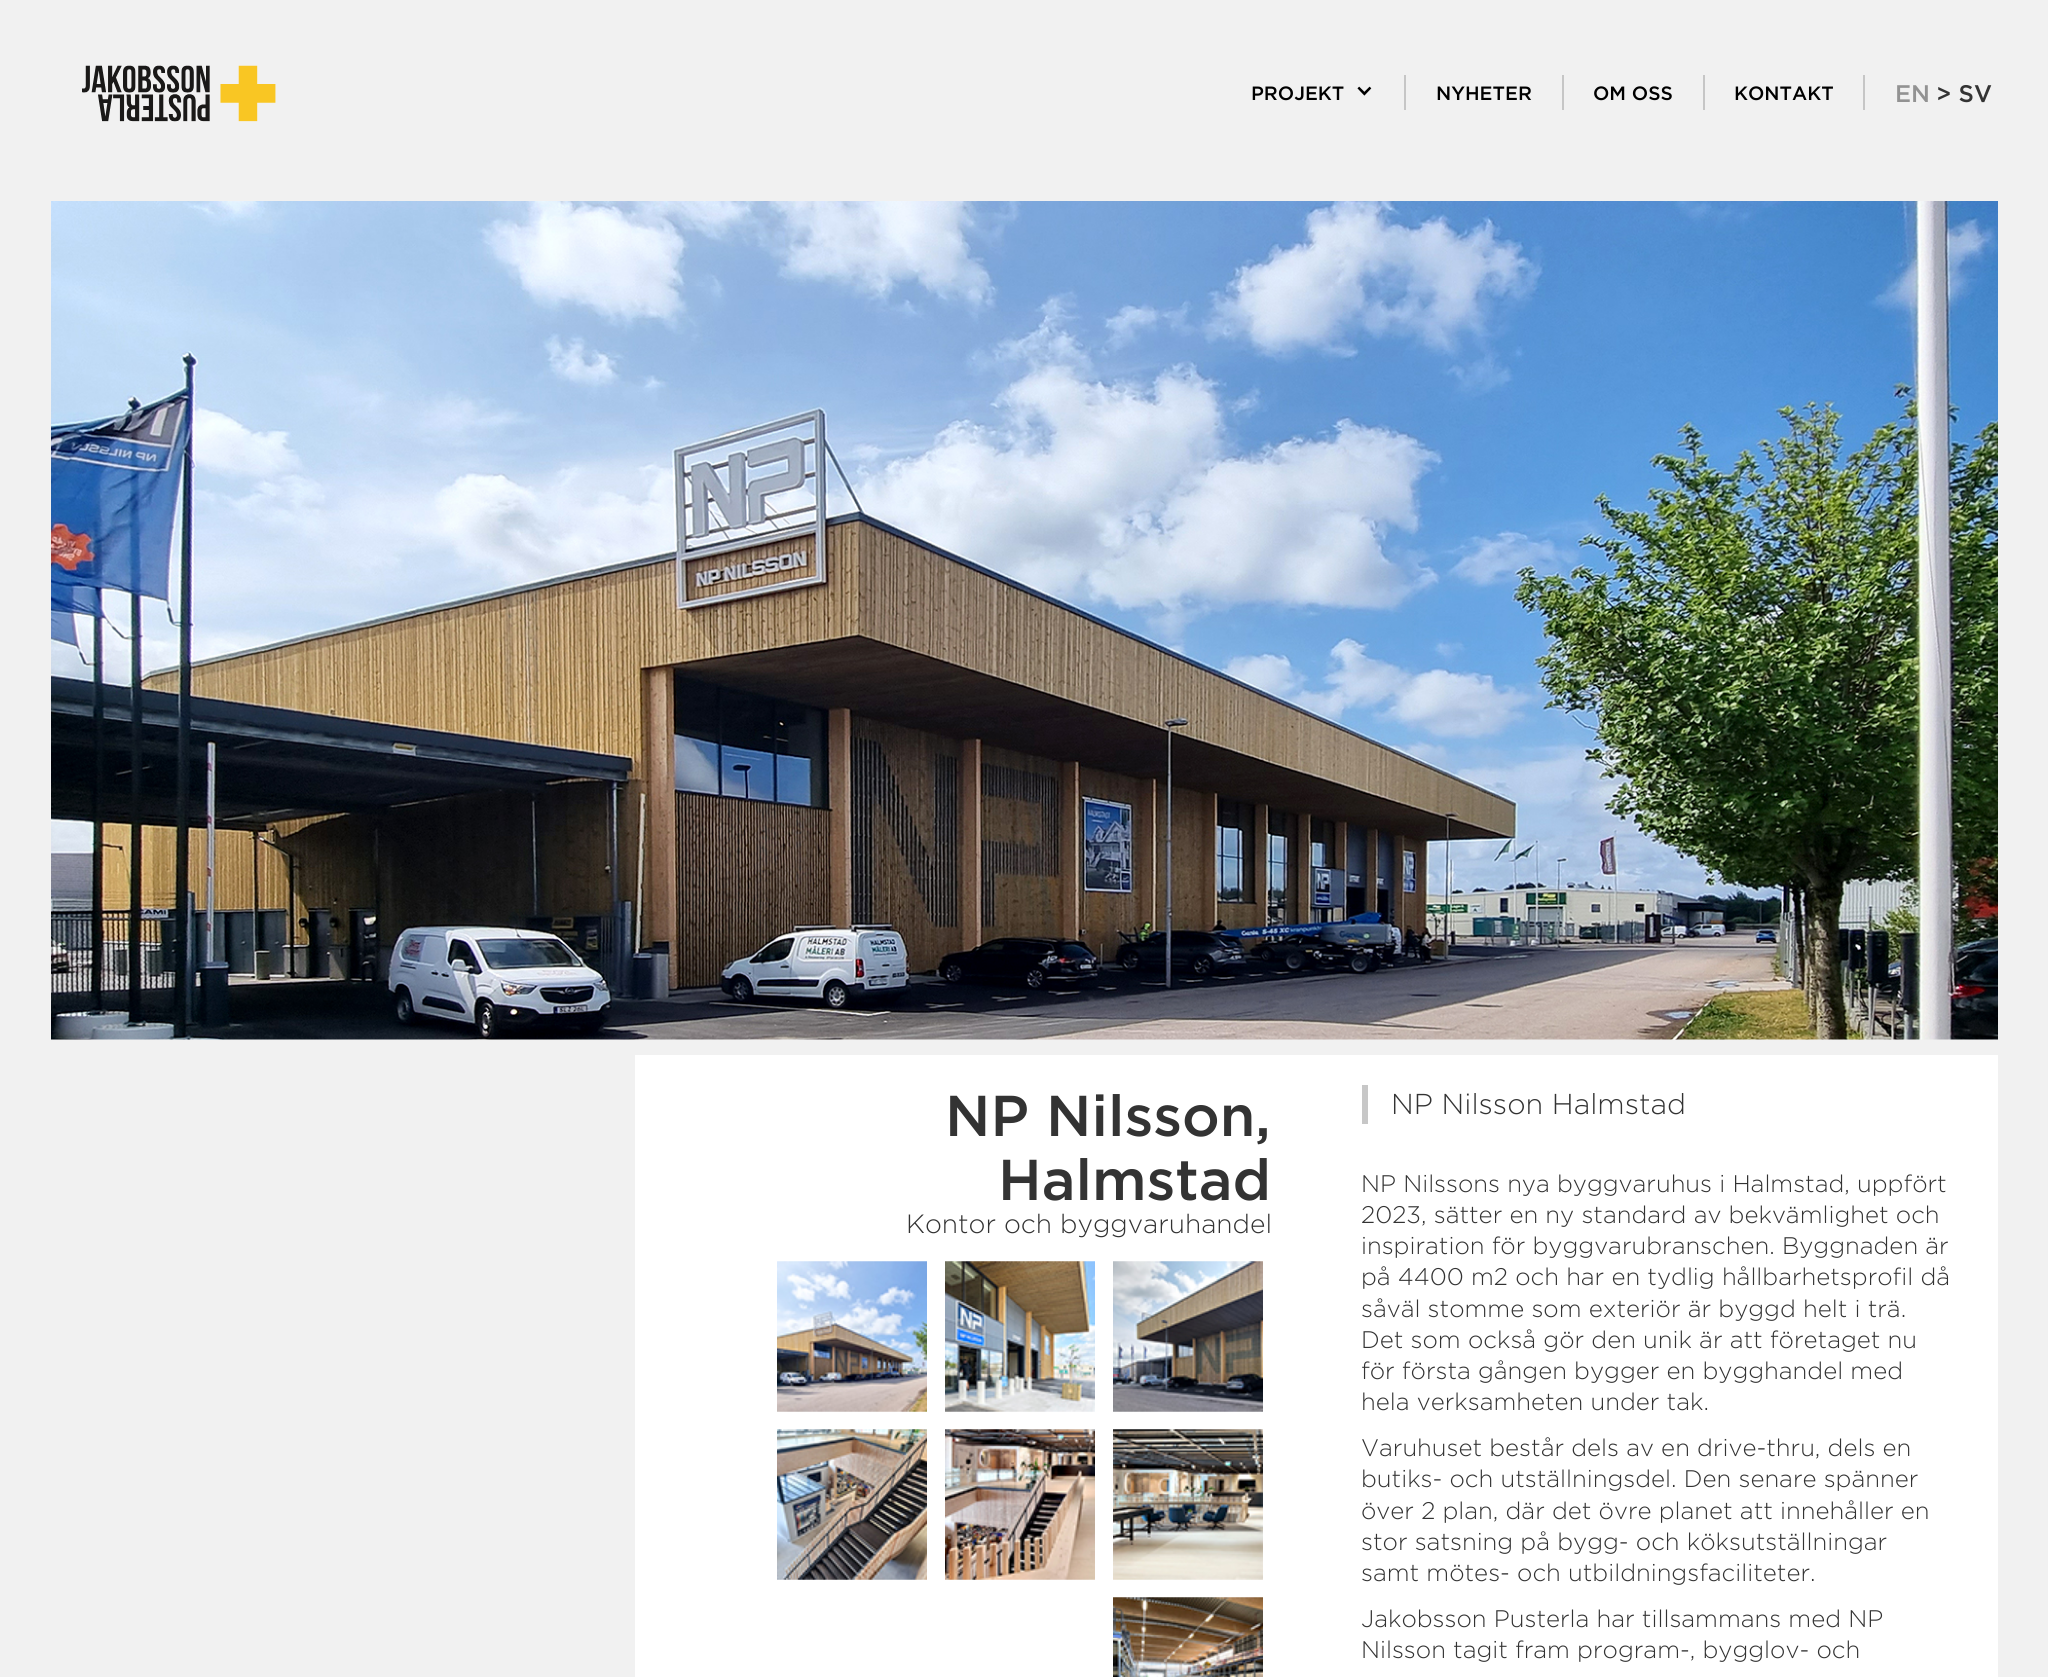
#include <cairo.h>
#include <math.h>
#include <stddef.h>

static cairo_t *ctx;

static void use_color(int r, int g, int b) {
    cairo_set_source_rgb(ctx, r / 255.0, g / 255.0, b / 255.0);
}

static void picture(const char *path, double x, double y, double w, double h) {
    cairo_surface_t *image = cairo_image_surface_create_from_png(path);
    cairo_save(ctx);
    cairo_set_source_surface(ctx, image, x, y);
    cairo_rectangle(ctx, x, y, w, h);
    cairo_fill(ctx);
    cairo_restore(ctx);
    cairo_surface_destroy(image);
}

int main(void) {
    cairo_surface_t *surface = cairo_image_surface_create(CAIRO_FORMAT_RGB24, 2048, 1677);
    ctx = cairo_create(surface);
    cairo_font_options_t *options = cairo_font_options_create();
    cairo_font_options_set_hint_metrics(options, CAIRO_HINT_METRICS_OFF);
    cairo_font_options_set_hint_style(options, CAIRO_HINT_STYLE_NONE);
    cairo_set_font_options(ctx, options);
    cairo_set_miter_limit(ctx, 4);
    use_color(241, 241, 241);
    cairo_paint(ctx);
    picture("img1.png", 82, 65, 194, 57);
    use_color(198, 198, 198);
    cairo_rectangle(ctx, 1404, 75, 2, 35);
    cairo_fill(ctx);
    cairo_select_font_face(ctx, "Gotham Medium", CAIRO_FONT_SLANT_NORMAL, CAIRO_FONT_WEIGHT_NORMAL);
    cairo_set_font_size(ctx, 19.25);
    use_color(0, 0, 0);
    cairo_move_to(ctx, 1251, 100);
    cairo_show_text(ctx, "PROJEKT");
    picture("img2.png", 1357, 86, 15, 10);
    use_color(198, 198, 198);
    cairo_rectangle(ctx, 1562, 75, 2, 35);
    cairo_fill(ctx);
    use_color(0, 0, 0);
    cairo_move_to(ctx, 1436, 100);
    cairo_show_text(ctx, "NYHETER");
    use_color(198, 198, 198);
    cairo_rectangle(ctx, 1703, 75, 2, 35);
    cairo_fill(ctx);
    use_color(0, 0, 0);
    cairo_move_to(ctx, 1593, 100);
    cairo_show_text(ctx, "OM OSS");
    use_color(198, 198, 198);
    cairo_rectangle(ctx, 1863, 75, 2, 35);
    cairo_fill(ctx);
    use_color(0, 0, 0);
    cairo_move_to(ctx, 1734, 100);
    cairo_show_text(ctx, "KONTAKT");
    cairo_set_font_size(ctx, 24);
    use_color(146, 146, 146);
    cairo_move_to(ctx, 1895, 102);
    cairo_show_text(ctx, "EN");
    use_color(51, 51, 51);
    cairo_move_to(ctx, 1936, 102);
    cairo_show_text(ctx, "> SV");
    picture("img3.png", 51, 201, 1947, 839);
    use_color(255, 255, 255);
    cairo_rectangle(ctx, 635, 1055, 1363, 622);
    cairo_fill(ctx);
    cairo_set_font_size(ctx, 57.5);
    use_color(51, 51, 51);
    cairo_move_to(ctx, 945, 1136);
    cairo_show_text(ctx, "NP Nilsson,");
    cairo_move_to(ctx, 998, 1200);
    cairo_show_text(ctx, "Halmstad");
    cairo_select_font_face(ctx, "Gotham Light", CAIRO_FONT_SLANT_NORMAL, CAIRO_FONT_WEIGHT_NORMAL);
    cairo_set_font_size(ctx, 26.4);
    cairo_move_to(ctx, 906, 1233);
    cairo_show_text(ctx, "Kontor och byggvaruhandel");
    picture("img4.png", 777, 1261, 150, 151);
    picture("img5.png", 777, 1261, 150, 151);
    picture("img6.png", 945, 1261, 150, 151);
    picture("img7.png", 945, 1261, 150, 151);
    picture("img8.png", 1113, 1261, 150, 151);
    picture("img9.png", 1113, 1261, 150, 151);
    picture("img10.png", 777, 1429, 150, 151);
    picture("img11.png", 777, 1429, 150, 151);
    picture("img12.png", 945, 1429, 150, 151);
    picture("img13.png", 945, 1429, 150, 151);
    picture("img14.png", 1113, 1429, 150, 151);
    picture("img15.png", 1113, 1429, 150, 151);
    picture("img16.png", 1113, 1597, 150, 80);
    picture("img17.png", 1113, 1597, 150, 1);
    use_color(199, 199, 199);
    cairo_rectangle(ctx, 1362, 1085, 6, 39);
    cairo_fill(ctx);
    cairo_set_font_size(ctx, 28.75);
    use_color(51, 51, 51);
    cairo_move_to(ctx, 1391, 1114);
    cairo_show_text(ctx, "NP Nilsson Halmstad");
    cairo_set_font_size(ctx, 24);
    cairo_move_to(ctx, 1361, 1192);
    cairo_show_text(ctx, "NP Nilssons nya byggvaruhus i Halmstad, uppfört");
    cairo_move_to(ctx, 1361, 1223);
    cairo_show_text(ctx, "2023, sätter en ny standard av bekvämlighet och");
    cairo_move_to(ctx, 1361, 1254);
    cairo_show_text(ctx, "inspiration för byggvarubranschen. Byggnaden är");
    cairo_move_to(ctx, 1361, 1285);
    cairo_show_text(ctx, "på 4400 m2 och har en tydlig hållbarhetsprofil då");
    cairo_move_to(ctx, 1361, 1317);
    cairo_show_text(ctx, "såväl stomme som exteriör är byggd helt i trä.");
    cairo_move_to(ctx, 1361, 1348);
    cairo_show_text(ctx, "Det som också gör den unik är att företaget nu");
    cairo_move_to(ctx, 1361, 1379);
    cairo_show_text(ctx, "för första gången bygger en bygghandel med");
    cairo_move_to(ctx, 1361, 1410);
    cairo_show_text(ctx, "hela verksamheten under tak.");
    cairo_move_to(ctx, 1361, 1456);
    cairo_show_text(ctx, "Varuhuset består dels av en drive-thru, dels en");
    cairo_move_to(ctx, 1361, 1487);
    cairo_show_text(ctx, "butiks- och utställningsdel. Den senare spänner");
    cairo_move_to(ctx, 1361, 1519);
    cairo_show_text(ctx, "över 2 plan, där det övre planet att innehåller en");
    cairo_move_to(ctx, 1361, 1550);
    cairo_show_text(ctx, "stor satsning på bygg- och köksutställningar");
    cairo_move_to(ctx, 1361, 1581);
    cairo_show_text(ctx, "samt mötes- och utbildningsfaciliteter.");
    cairo_move_to(ctx, 1361, 1627);
    cairo_show_text(ctx, "Jakobsson Pusterla har tillsammans med NP");
    cairo_move_to(ctx, 1361, 1658);
    cairo_show_text(ctx, "Nilsson tagit fram program-, bygglov- och");
    cairo_surface_write_to_png(surface, "result.png");
    cairo_font_options_destroy(options);
    cairo_destroy(ctx);
    cairo_surface_destroy(surface);
    return 0;
}
